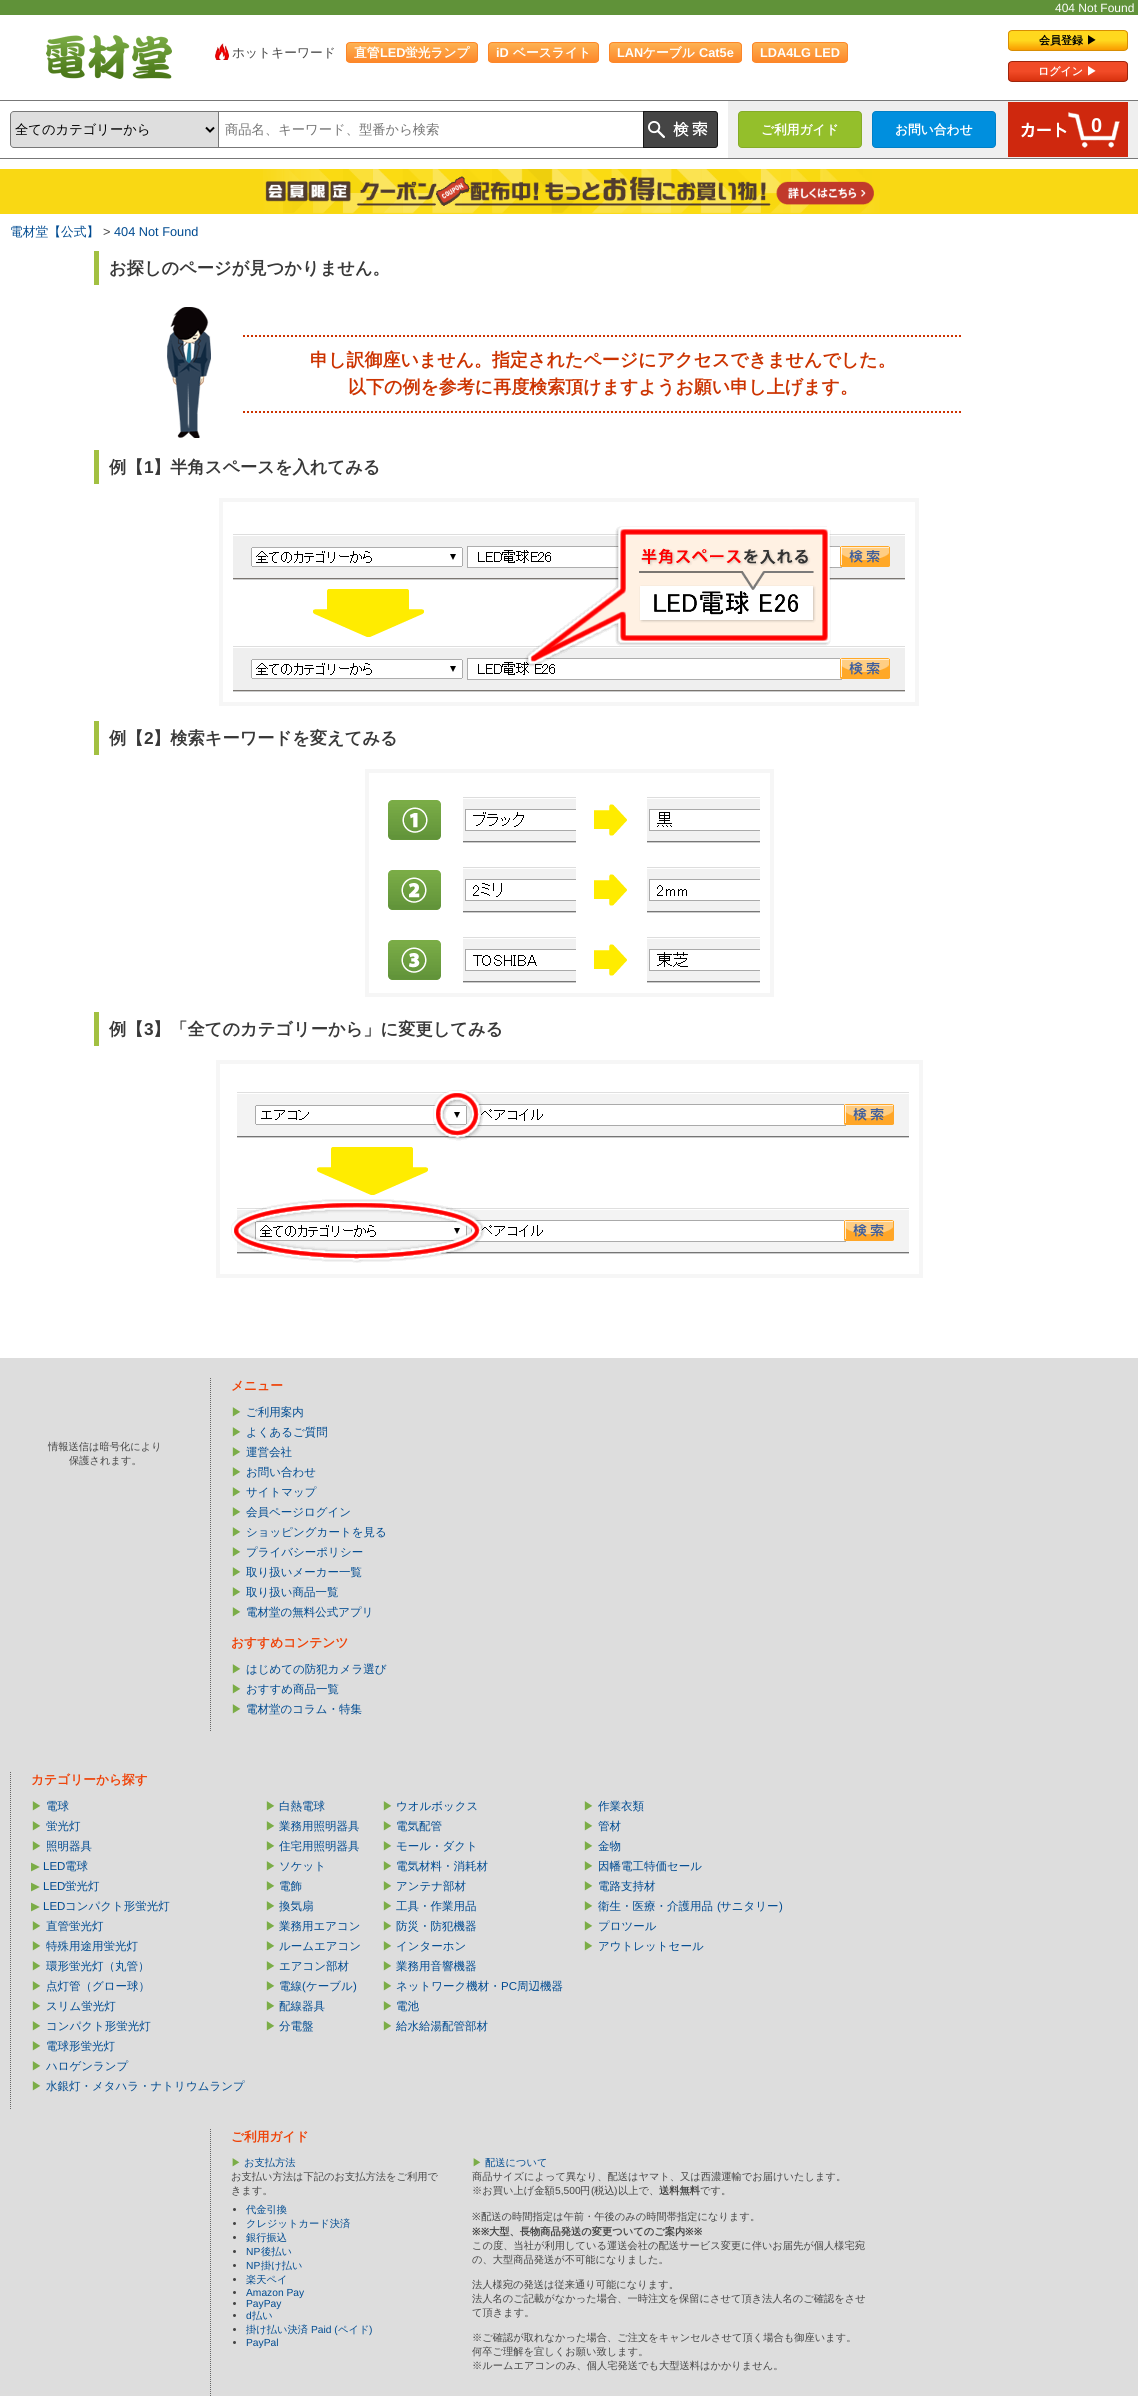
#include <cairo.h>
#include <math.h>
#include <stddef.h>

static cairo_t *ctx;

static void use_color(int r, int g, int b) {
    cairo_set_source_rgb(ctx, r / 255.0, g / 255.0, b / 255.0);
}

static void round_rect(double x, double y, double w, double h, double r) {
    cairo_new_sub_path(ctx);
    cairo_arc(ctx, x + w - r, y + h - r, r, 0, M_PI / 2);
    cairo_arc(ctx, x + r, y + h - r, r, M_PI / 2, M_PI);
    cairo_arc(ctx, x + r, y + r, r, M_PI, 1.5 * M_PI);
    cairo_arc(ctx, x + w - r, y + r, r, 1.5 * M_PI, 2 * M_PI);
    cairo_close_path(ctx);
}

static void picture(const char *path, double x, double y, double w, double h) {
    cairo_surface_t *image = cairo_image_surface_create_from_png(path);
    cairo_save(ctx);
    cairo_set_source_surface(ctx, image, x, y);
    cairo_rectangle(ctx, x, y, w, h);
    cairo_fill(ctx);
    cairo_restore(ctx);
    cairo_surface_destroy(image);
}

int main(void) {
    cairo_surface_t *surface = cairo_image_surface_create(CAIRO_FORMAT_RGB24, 1138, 2396);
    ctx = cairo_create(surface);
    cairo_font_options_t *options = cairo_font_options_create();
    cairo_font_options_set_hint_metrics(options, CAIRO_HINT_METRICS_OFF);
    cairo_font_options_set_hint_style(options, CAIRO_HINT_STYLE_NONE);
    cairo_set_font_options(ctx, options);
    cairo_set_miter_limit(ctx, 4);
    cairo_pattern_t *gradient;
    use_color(255, 255, 255);
    cairo_paint(ctx);
    use_color(96, 146, 57);
    cairo_rectangle(ctx, 0, 0, 1138, 15);
    cairo_fill(ctx);
    cairo_select_font_face(ctx, "Liberation Sans", CAIRO_FONT_SLANT_NORMAL, CAIRO_FONT_WEIGHT_NORMAL);
    cairo_set_font_size(ctx, 12);
    use_color(255, 255, 255);
    cairo_move_to(ctx, 1055, 12);
    cairo_show_text(ctx, "404 Not Found");
    picture("img1.png", 46, 35, 126, 44);
    picture("img2.png", 215, 43, 14, 17);
    cairo_select_font_face(ctx, "WenQuanYi Zen Hei Medium", CAIRO_FONT_SLANT_NORMAL, CAIRO_FONT_WEIGHT_NORMAL);
    cairo_set_font_size(ctx, 12.75);
    use_color(68, 68, 68);
    cairo_move_to(ctx, 232, 57);
    cairo_show_text(ctx, "ホットキーワード");
    cairo_save(ctx);
    round_rect(346, 42, 132, 21, 4);
    cairo_clip(ctx);
    gradient = cairo_pattern_create_linear(412, 43, 412, 62);
    cairo_pattern_add_color_stop_rgba(gradient, 0, 0.992, 0.698, 0.325, 1);
    cairo_pattern_add_color_stop_rgba(gradient, 1, 0.992, 0.529, 0.161, 1);
    cairo_set_source(ctx, gradient);
    cairo_pattern_destroy(gradient);
    cairo_rectangle(ctx, 346, 43, 132, 19);
    cairo_fill(ctx);
    cairo_restore(ctx);
    round_rect(346.5, 42.5, 131, 20, 3.5);
    use_color(253, 135, 41);
    cairo_set_line_width(ctx, 1);
    cairo_stroke(ctx);
    cairo_select_font_face(ctx, "WenQuanYi Zen Hei", CAIRO_FONT_SLANT_NORMAL, CAIRO_FONT_WEIGHT_BOLD);
    use_color(255, 255, 255);
    cairo_move_to(ctx, 354, 57);
    cairo_show_text(ctx, "直管");
    cairo_select_font_face(ctx, "Liberation Sans", CAIRO_FONT_SLANT_NORMAL, CAIRO_FONT_WEIGHT_BOLD);
    cairo_move_to(ctx, 380, 57);
    cairo_show_text(ctx, "LED");
    cairo_select_font_face(ctx, "WenQuanYi Zen Hei", CAIRO_FONT_SLANT_NORMAL, CAIRO_FONT_WEIGHT_BOLD);
    cairo_move_to(ctx, 405, 57);
    cairo_show_text(ctx, "蛍光ランプ");
    cairo_save(ctx);
    round_rect(488, 42, 111, 21, 4);
    cairo_clip(ctx);
    gradient = cairo_pattern_create_linear(544, 43, 544, 62);
    cairo_pattern_add_color_stop_rgba(gradient, 0, 0.992, 0.698, 0.325, 1);
    cairo_pattern_add_color_stop_rgba(gradient, 1, 0.992, 0.529, 0.161, 1);
    cairo_set_source(ctx, gradient);
    cairo_pattern_destroy(gradient);
    cairo_rectangle(ctx, 488, 43, 111, 19);
    cairo_fill(ctx);
    cairo_restore(ctx);
    round_rect(488.5, 42.5, 110, 20, 3.5);
    use_color(253, 135, 41);
    cairo_stroke(ctx);
    cairo_select_font_face(ctx, "Liberation Sans", CAIRO_FONT_SLANT_NORMAL, CAIRO_FONT_WEIGHT_BOLD);
    use_color(255, 255, 255);
    cairo_move_to(ctx, 496, 57);
    cairo_show_text(ctx, "iD");
    cairo_select_font_face(ctx, "WenQuanYi Zen Hei", CAIRO_FONT_SLANT_NORMAL, CAIRO_FONT_WEIGHT_BOLD);
    cairo_move_to(ctx, 513, 57);
    cairo_show_text(ctx, "ベースライト");
    cairo_save(ctx);
    round_rect(609, 42, 133, 21, 4);
    cairo_clip(ctx);
    gradient = cairo_pattern_create_linear(676, 43, 676, 62);
    cairo_pattern_add_color_stop_rgba(gradient, 0, 0.992, 0.698, 0.325, 1);
    cairo_pattern_add_color_stop_rgba(gradient, 1, 0.992, 0.529, 0.161, 1);
    cairo_set_source(ctx, gradient);
    cairo_pattern_destroy(gradient);
    cairo_rectangle(ctx, 609, 43, 133, 19);
    cairo_fill(ctx);
    cairo_restore(ctx);
    round_rect(609.5, 42.5, 132, 20, 3.5);
    use_color(253, 135, 41);
    cairo_stroke(ctx);
    cairo_select_font_face(ctx, "Liberation Sans", CAIRO_FONT_SLANT_NORMAL, CAIRO_FONT_WEIGHT_BOLD);
    use_color(255, 255, 255);
    cairo_move_to(ctx, 617, 57);
    cairo_show_text(ctx, "LAN");
    cairo_select_font_face(ctx, "WenQuanYi Zen Hei", CAIRO_FONT_SLANT_NORMAL, CAIRO_FONT_WEIGHT_BOLD);
    cairo_move_to(ctx, 643, 57);
    cairo_show_text(ctx, "ケーブル");
    cairo_select_font_face(ctx, "Liberation Sans", CAIRO_FONT_SLANT_NORMAL, CAIRO_FONT_WEIGHT_BOLD);
    cairo_move_to(ctx, 699, 57);
    cairo_show_text(ctx, "Cat5e");
    cairo_save(ctx);
    round_rect(752, 42, 96, 21, 4);
    cairo_clip(ctx);
    gradient = cairo_pattern_create_linear(800, 43, 800, 62);
    cairo_pattern_add_color_stop_rgba(gradient, 0, 0.992, 0.698, 0.325, 1);
    cairo_pattern_add_color_stop_rgba(gradient, 1, 0.992, 0.529, 0.161, 1);
    cairo_set_source(ctx, gradient);
    cairo_pattern_destroy(gradient);
    cairo_rectangle(ctx, 752, 43, 96, 19);
    cairo_fill(ctx);
    cairo_restore(ctx);
    round_rect(752.5, 42.5, 95, 20, 3.5);
    use_color(253, 135, 41);
    cairo_stroke(ctx);
    use_color(255, 255, 255);
    cairo_move_to(ctx, 760, 57);
    cairo_show_text(ctx, "LDA4LG LED");
    cairo_save(ctx);
    round_rect(1008, 30, 120, 21, 4);
    cairo_clip(ctx);
    gradient = cairo_pattern_create_linear(1068, 31, 1068, 50);
    cairo_pattern_add_color_stop_rgba(gradient, 0.5, 1, 0.847, 0.118, 1);
    cairo_pattern_add_color_stop_rgba(gradient, 1, 0.976, 0.608, 0, 1);
    cairo_set_source(ctx, gradient);
    cairo_pattern_destroy(gradient);
    cairo_rectangle(ctx, 1008, 31, 120, 19);
    cairo_fill(ctx);
    cairo_restore(ctx);
    round_rect(1008.5, 30.5, 119, 20, 3.5);
    use_color(215, 142, 3);
    cairo_stroke(ctx);
    cairo_select_font_face(ctx, "WenQuanYi Zen Hei", CAIRO_FONT_SLANT_NORMAL, CAIRO_FONT_WEIGHT_BOLD);
    cairo_set_font_size(ctx, 11);
    use_color(0, 0, 0);
    cairo_move_to(ctx, 1039, 44);
    cairo_show_text(ctx, "会員登録 ▶");
    cairo_save(ctx);
    round_rect(1008, 61, 120, 21, 4);
    cairo_clip(ctx);
    gradient = cairo_pattern_create_linear(1068, 62, 1068, 81);
    cairo_pattern_add_color_stop_rgba(gradient, 0.5, 0.945, 0.294, 0.153, 1);
    cairo_pattern_add_color_stop_rgba(gradient, 1, 0.847, 0.192, 0.055, 1);
    cairo_set_source(ctx, gradient);
    cairo_pattern_destroy(gradient);
    cairo_rectangle(ctx, 1008, 62, 120, 19);
    cairo_fill(ctx);
    cairo_restore(ctx);
    round_rect(1008.5, 61.5, 119, 20, 3.5);
    use_color(158, 37, 12);
    cairo_stroke(ctx);
    use_color(255, 255, 255);
    cairo_move_to(ctx, 1038, 75);
    cairo_show_text(ctx, "ログイン ▶");
    use_color(119, 119, 119);
    cairo_rectangle(ctx, 0, 100, 1138, 1);
    cairo_fill(ctx);
    cairo_rectangle(ctx, 0, 158, 1138, 1);
    cairo_fill(ctx);
    use_color(222, 222, 222);
    cairo_new_path(ctx);
    cairo_move_to(ctx, 14, 111);
    cairo_line_to(ctx, 218, 111);
    cairo_line_to(ctx, 218, 148);
    cairo_line_to(ctx, 14, 148);
    cairo_curve_to(ctx, 12, 148, 10, 146, 10, 144);
    cairo_line_to(ctx, 10, 115);
    cairo_curve_to(ctx, 10, 113, 12, 111, 14, 111);
    cairo_close_path(ctx);
    cairo_fill(ctx);
    use_color(119, 119, 119);
    cairo_set_fill_rule(ctx, CAIRO_FILL_RULE_EVEN_ODD);
    cairo_new_path(ctx);
    cairo_move_to(ctx, 14, 111);
    cairo_line_to(ctx, 218, 111);
    cairo_line_to(ctx, 218, 148);
    cairo_line_to(ctx, 14, 148);
    cairo_curve_to(ctx, 12, 148, 10, 146, 10, 144);
    cairo_line_to(ctx, 10, 115);
    cairo_curve_to(ctx, 10, 113, 12, 111, 14, 111);
    cairo_close_path(ctx);
    cairo_move_to(ctx, 14, 112);
    cairo_line_to(ctx, 218, 112);
    cairo_line_to(ctx, 218, 147);
    cairo_line_to(ctx, 14, 147);
    cairo_curve_to(ctx, 12, 147, 11, 146, 11, 144);
    cairo_line_to(ctx, 11, 115);
    cairo_curve_to(ctx, 11, 113, 12, 112, 14, 112);
    cairo_close_path(ctx);
    cairo_fill(ctx);
    cairo_new_path(ctx);
    cairo_move_to(ctx, 206, 127.5);
    cairo_line_to(ctx, 210, 131.5);
    cairo_line_to(ctx, 214, 127.5);
    use_color(0, 0, 0);
    cairo_set_line_width(ctx, 2);
    cairo_stroke(ctx);
    cairo_select_font_face(ctx, "WenQuanYi Zen Hei Medium", CAIRO_FONT_SLANT_NORMAL, CAIRO_FONT_WEIGHT_NORMAL);
    cairo_set_font_size(ctx, 13.3);
    cairo_move_to(ctx, 15, 134);
    cairo_show_text(ctx, "全てのカテゴリーから");
    cairo_rectangle(ctx, 218.5, 111.5, 427, 36);
    use_color(119, 119, 119);
    cairo_set_line_width(ctx, 1);
    cairo_stroke(ctx);
    use_color(117, 117, 117);
    cairo_move_to(ctx, 225, 134);
    cairo_show_text(ctx, "商品名、キーワード、型番から検索");
    picture("img3.png", 643, 111, 75, 37);
    use_color(239, 239, 239);
    cairo_rectangle(ctx, 728, 101, 410, 57);
    cairo_fill(ctx);
    use_color(148, 191, 43);
    round_rect(738.5, 111.5, 123, 36, 3.5);
    cairo_fill_preserve(ctx);
    use_color(133, 172, 39);
    cairo_stroke(ctx);
    cairo_select_font_face(ctx, "WenQuanYi Zen Hei", CAIRO_FONT_SLANT_NORMAL, CAIRO_FONT_WEIGHT_BOLD);
    cairo_set_font_size(ctx, 12.75);
    use_color(255, 255, 255);
    cairo_move_to(ctx, 761, 134);
    cairo_show_text(ctx, "ご利用ガイド");
    use_color(0, 143, 222);
    round_rect(872.5, 111.5, 123, 36, 3.5);
    cairo_fill_preserve(ctx);
    use_color(0, 128, 199);
    cairo_stroke(ctx);
    use_color(255, 255, 255);
    cairo_move_to(ctx, 895, 134);
    cairo_show_text(ctx, "お問い合わせ");
    use_color(207, 40, 14);
    cairo_rectangle(ctx, 1008, 102, 120, 55);
    cairo_fill(ctx);
    picture("img4.png", 1021, 112, 99, 36);
    cairo_select_font_face(ctx, "Liberation Sans", CAIRO_FONT_SLANT_NORMAL, CAIRO_FONT_WEIGHT_BOLD);
    cairo_set_font_size(ctx, 20);
    use_color(255, 255, 255);
    cairo_move_to(ctx, 1091, 132);
    cairo_show_text(ctx, "0");
    use_color(249, 216, 20);
    cairo_rectangle(ctx, 0, 169, 1138, 45);
    cairo_fill(ctx);
    picture("img5.png", 263, 169, 617, 45);
    cairo_select_font_face(ctx, "WenQuanYi Zen Hei Medium", CAIRO_FONT_SLANT_NORMAL, CAIRO_FONT_WEIGHT_NORMAL);
    cairo_set_font_size(ctx, 12.75);
    use_color(0, 75, 145);
    cairo_move_to(ctx, 10, 236);
    cairo_show_text(ctx, "電材堂【公式】");
    cairo_select_font_face(ctx, "Liberation Sans", CAIRO_FONT_SLANT_NORMAL, CAIRO_FONT_WEIGHT_NORMAL);
    use_color(68, 68, 68);
    cairo_move_to(ctx, 103, 236);
    cairo_show_text(ctx, ">");
    use_color(0, 75, 145);
    cairo_move_to(ctx, 114, 236);
    cairo_show_text(ctx, "404 Not Found");
    use_color(162, 192, 65);
    cairo_rectangle(ctx, 94, 251, 5, 34);
    cairo_fill(ctx);
    cairo_select_font_face(ctx, "WenQuanYi Zen Hei", CAIRO_FONT_SLANT_NORMAL, CAIRO_FONT_WEIGHT_BOLD);
    cairo_set_font_size(ctx, 17.25);
    use_color(56, 56, 56);
    cairo_move_to(ctx, 109, 274);
    cairo_show_text(ctx, "お探しのページが見つかりません。");
    picture("img6.png", 167, 307, 44, 131);
    cairo_new_path(ctx);
    cairo_move_to(ctx, 243, 336);
    cairo_line_to(ctx, 963, 336);
    use_color(204, 51, 0);
    cairo_set_line_width(ctx, 2);
    cairo_set_dash(ctx, (double[]){2, 2}, 2, 0);
    cairo_stroke(ctx);
    cairo_new_path(ctx);
    cairo_move_to(ctx, 243, 412);
    cairo_line_to(ctx, 963, 412);
    cairo_stroke(ctx);
    cairo_set_font_size(ctx, 18);
    cairo_move_to(ctx, 310, 366);
    cairo_show_text(ctx, "申し訳御座いません。指定されたページにアクセスできませんでした。");
    cairo_move_to(ctx, 348, 393);
    cairo_show_text(ctx, "以下の例を参考に再度検索頂けますようお願い申し上げます。");
    use_color(162, 192, 65);
    cairo_rectangle(ctx, 94, 450, 5, 34);
    cairo_fill(ctx);
    cairo_set_font_size(ctx, 17.25);
    use_color(56, 56, 56);
    cairo_move_to(ctx, 109, 473);
    cairo_show_text(ctx, "例【");
    cairo_select_font_face(ctx, "Liberation Sans", CAIRO_FONT_SLANT_NORMAL, CAIRO_FONT_WEIGHT_BOLD);
    cairo_move_to(ctx, 144, 473);
    cairo_show_text(ctx, "1");
    cairo_select_font_face(ctx, "WenQuanYi Zen Hei", CAIRO_FONT_SLANT_NORMAL, CAIRO_FONT_WEIGHT_BOLD);
    cairo_move_to(ctx, 153, 473);
    cairo_show_text(ctx, "】半角スペースを入れてみる");
    cairo_rectangle(ctx, 221, 500, 696, 204);
    use_color(246, 246, 246);
    cairo_set_line_width(ctx, 4);
    cairo_set_dash(ctx, NULL, 0, 0);
    cairo_stroke(ctx);
    picture("img7.png", 233, 526, 672, 166);
    use_color(162, 192, 65);
    cairo_rectangle(ctx, 94, 721, 5, 34);
    cairo_fill(ctx);
    use_color(56, 56, 56);
    cairo_move_to(ctx, 109, 744);
    cairo_show_text(ctx, "例【");
    cairo_select_font_face(ctx, "Liberation Sans", CAIRO_FONT_SLANT_NORMAL, CAIRO_FONT_WEIGHT_BOLD);
    cairo_move_to(ctx, 144, 744);
    cairo_show_text(ctx, "2");
    cairo_select_font_face(ctx, "WenQuanYi Zen Hei", CAIRO_FONT_SLANT_NORMAL, CAIRO_FONT_WEIGHT_BOLD);
    cairo_move_to(ctx, 153, 744);
    cairo_show_text(ctx, "】検索キーワードを変えてみる");
    cairo_rectangle(ctx, 367, 771, 405, 224);
    use_color(246, 246, 246);
    cairo_stroke(ctx);
    picture("img8.png", 388, 797, 372, 186);
    use_color(162, 192, 65);
    cairo_rectangle(ctx, 94, 1012, 5, 34);
    cairo_fill(ctx);
    use_color(56, 56, 56);
    cairo_move_to(ctx, 109, 1035);
    cairo_show_text(ctx, "例【");
    cairo_select_font_face(ctx, "Liberation Sans", CAIRO_FONT_SLANT_NORMAL, CAIRO_FONT_WEIGHT_BOLD);
    cairo_move_to(ctx, 144, 1035);
    cairo_show_text(ctx, "3");
    cairo_select_font_face(ctx, "WenQuanYi Zen Hei", CAIRO_FONT_SLANT_NORMAL, CAIRO_FONT_WEIGHT_BOLD);
    cairo_move_to(ctx, 153, 1035);
    cairo_show_text(ctx, "】「全てのカテゴリーから」に変更してみる");
    cairo_rectangle(ctx, 218, 1062, 703, 214);
    use_color(246, 246, 246);
    cairo_stroke(ctx);
    picture("img9.png", 231, 1090, 678, 173);
    use_color(221, 221, 221);
    cairo_rectangle(ctx, 0, 1358, 1138, 1038);
    cairo_fill(ctx);
    cairo_select_font_face(ctx, "WenQuanYi Zen Hei Medium", CAIRO_FONT_SLANT_NORMAL, CAIRO_FONT_WEIGHT_NORMAL);
    cairo_set_font_size(ctx, 10.25);
    use_color(68, 68, 68);
    cairo_move_to(ctx, 48, 1450);
    cairo_show_text(ctx, "情報送信は暗号化により");
    cairo_move_to(ctx, 69, 1464);
    cairo_show_text(ctx, "保護されます。");
    cairo_new_path(ctx);
    cairo_move_to(ctx, 210.5, 1378);
    cairo_line_to(ctx, 210.5, 1732);
    use_color(102, 102, 102);
    cairo_set_line_width(ctx, 1);
    cairo_set_dash(ctx, (double[]){1, 1}, 2, 0);
    cairo_stroke(ctx);
    cairo_select_font_face(ctx, "WenQuanYi Zen Hei", CAIRO_FONT_SLANT_NORMAL, CAIRO_FONT_WEIGHT_BOLD);
    cairo_set_font_size(ctx, 12.75);
    use_color(239, 66, 7);
    cairo_move_to(ctx, 231, 1390);
    cairo_show_text(ctx, "メニュー");
    cairo_select_font_face(ctx, "WenQuanYi Zen Hei Medium", CAIRO_FONT_SLANT_NORMAL, CAIRO_FONT_WEIGHT_NORMAL);
    cairo_set_font_size(ctx, 11.5);
    use_color(123, 173, 71);
    cairo_move_to(ctx, 231, 1416);
    cairo_show_text(ctx, "▶");
    use_color(0, 75, 145);
    cairo_move_to(ctx, 246, 1416);
    cairo_show_text(ctx, "ご利用案内");
    use_color(123, 173, 71);
    cairo_move_to(ctx, 231, 1436);
    cairo_show_text(ctx, "▶");
    use_color(0, 75, 145);
    cairo_move_to(ctx, 246, 1436);
    cairo_show_text(ctx, "よくあるご質問");
    use_color(123, 173, 71);
    cairo_move_to(ctx, 231, 1456);
    cairo_show_text(ctx, "▶");
    use_color(0, 75, 145);
    cairo_move_to(ctx, 246, 1456);
    cairo_show_text(ctx, "運営会社");
    use_color(123, 173, 71);
    cairo_move_to(ctx, 231, 1476);
    cairo_show_text(ctx, "▶");
    use_color(0, 75, 145);
    cairo_move_to(ctx, 246, 1476);
    cairo_show_text(ctx, "お問い合わせ");
    use_color(123, 173, 71);
    cairo_move_to(ctx, 231, 1496);
    cairo_show_text(ctx, "▶");
    use_color(0, 75, 145);
    cairo_move_to(ctx, 246, 1496);
    cairo_show_text(ctx, "サイトマップ");
    use_color(123, 173, 71);
    cairo_move_to(ctx, 231, 1516);
    cairo_show_text(ctx, "▶");
    use_color(0, 75, 145);
    cairo_move_to(ctx, 246, 1516);
    cairo_show_text(ctx, "会員ページログイン");
    use_color(123, 173, 71);
    cairo_move_to(ctx, 231, 1536);
    cairo_show_text(ctx, "▶");
    use_color(0, 75, 145);
    cairo_move_to(ctx, 246, 1536);
    cairo_show_text(ctx, "ショッピングカートを見る");
    use_color(123, 173, 71);
    cairo_move_to(ctx, 231, 1556);
    cairo_show_text(ctx, "▶");
    use_color(0, 75, 145);
    cairo_move_to(ctx, 246, 1556);
    cairo_show_text(ctx, "プライバシーポリシー");
    use_color(123, 173, 71);
    cairo_move_to(ctx, 231, 1576);
    cairo_show_text(ctx, "▶");
    use_color(0, 75, 145);
    cairo_move_to(ctx, 246, 1576);
    cairo_show_text(ctx, "取り扱いメーカー一覧");
    use_color(123, 173, 71);
    cairo_move_to(ctx, 231, 1596);
    cairo_show_text(ctx, "▶");
    use_color(0, 75, 145);
    cairo_move_to(ctx, 246, 1596);
    cairo_show_text(ctx, "取り扱い商品一覧");
    use_color(123, 173, 71);
    cairo_move_to(ctx, 231, 1616);
    cairo_show_text(ctx, "▶");
    use_color(0, 75, 145);
    cairo_move_to(ctx, 246, 1616);
    cairo_show_text(ctx, "電材堂の無料公式アプリ");
    cairo_select_font_face(ctx, "WenQuanYi Zen Hei", CAIRO_FONT_SLANT_NORMAL, CAIRO_FONT_WEIGHT_BOLD);
    cairo_set_font_size(ctx, 12.75);
    use_color(239, 66, 7);
    cairo_move_to(ctx, 231, 1647);
    cairo_show_text(ctx, "おすすめコンテンツ");
    cairo_select_font_face(ctx, "WenQuanYi Zen Hei Medium", CAIRO_FONT_SLANT_NORMAL, CAIRO_FONT_WEIGHT_NORMAL);
    cairo_set_font_size(ctx, 11.5);
    use_color(123, 173, 71);
    cairo_move_to(ctx, 231, 1673);
    cairo_show_text(ctx, "▶");
    use_color(0, 75, 145);
    cairo_move_to(ctx, 246, 1673);
    cairo_show_text(ctx, "はじめての防犯カメラ選び");
    use_color(123, 173, 71);
    cairo_move_to(ctx, 231, 1693);
    cairo_show_text(ctx, "▶");
    use_color(0, 75, 145);
    cairo_move_to(ctx, 246, 1693);
    cairo_show_text(ctx, "おすすめ商品一覧");
    use_color(123, 173, 71);
    cairo_move_to(ctx, 231, 1713);
    cairo_show_text(ctx, "▶");
    use_color(0, 75, 145);
    cairo_move_to(ctx, 246, 1713);
    cairo_show_text(ctx, "電材堂のコラム・特集");
    cairo_new_path(ctx);
    cairo_move_to(ctx, 10.5, 1772);
    cairo_line_to(ctx, 10.5, 2109);
    use_color(102, 102, 102);
    cairo_stroke(ctx);
    cairo_select_font_face(ctx, "WenQuanYi Zen Hei", CAIRO_FONT_SLANT_NORMAL, CAIRO_FONT_WEIGHT_BOLD);
    cairo_set_font_size(ctx, 12.75);
    use_color(239, 66, 7);
    cairo_move_to(ctx, 31, 1784);
    cairo_show_text(ctx, "カテゴリーから探す");
    cairo_select_font_face(ctx, "WenQuanYi Zen Hei Medium", CAIRO_FONT_SLANT_NORMAL, CAIRO_FONT_WEIGHT_NORMAL);
    cairo_set_font_size(ctx, 11.5);
    use_color(123, 173, 71);
    cairo_move_to(ctx, 31, 1810);
    cairo_show_text(ctx, "▶");
    use_color(0, 75, 145);
    cairo_move_to(ctx, 46, 1810);
    cairo_show_text(ctx, "電球");
    use_color(123, 173, 71);
    cairo_move_to(ctx, 31, 1830);
    cairo_show_text(ctx, "▶");
    use_color(0, 75, 145);
    cairo_move_to(ctx, 46, 1830);
    cairo_show_text(ctx, "蛍光灯");
    use_color(123, 173, 71);
    cairo_move_to(ctx, 31, 1850);
    cairo_show_text(ctx, "▶");
    use_color(0, 75, 145);
    cairo_move_to(ctx, 46, 1850);
    cairo_show_text(ctx, "照明器具");
    cairo_select_font_face(ctx, "DejaVu Sans", CAIRO_FONT_SLANT_NORMAL, CAIRO_FONT_WEIGHT_NORMAL);
    use_color(123, 173, 71);
    cairo_move_to(ctx, 31, 1870);
    cairo_show_text(ctx, "▶");
    cairo_select_font_face(ctx, "Liberation Sans", CAIRO_FONT_SLANT_NORMAL, CAIRO_FONT_WEIGHT_NORMAL);
    use_color(0, 75, 145);
    cairo_move_to(ctx, 43, 1870);
    cairo_show_text(ctx, "LED");
    cairo_select_font_face(ctx, "WenQuanYi Zen Hei Medium", CAIRO_FONT_SLANT_NORMAL, CAIRO_FONT_WEIGHT_NORMAL);
    cairo_move_to(ctx, 65, 1870);
    cairo_show_text(ctx, "電球");
    cairo_select_font_face(ctx, "DejaVu Sans", CAIRO_FONT_SLANT_NORMAL, CAIRO_FONT_WEIGHT_NORMAL);
    use_color(123, 173, 71);
    cairo_move_to(ctx, 31, 1890);
    cairo_show_text(ctx, "▶");
    cairo_select_font_face(ctx, "Liberation Sans", CAIRO_FONT_SLANT_NORMAL, CAIRO_FONT_WEIGHT_NORMAL);
    use_color(0, 75, 145);
    cairo_move_to(ctx, 43, 1890);
    cairo_show_text(ctx, "LED");
    cairo_select_font_face(ctx, "WenQuanYi Zen Hei Medium", CAIRO_FONT_SLANT_NORMAL, CAIRO_FONT_WEIGHT_NORMAL);
    cairo_move_to(ctx, 65, 1890);
    cairo_show_text(ctx, "蛍光灯");
    cairo_select_font_face(ctx, "DejaVu Sans", CAIRO_FONT_SLANT_NORMAL, CAIRO_FONT_WEIGHT_NORMAL);
    use_color(123, 173, 71);
    cairo_move_to(ctx, 31, 1910);
    cairo_show_text(ctx, "▶");
    cairo_select_font_face(ctx, "Liberation Sans", CAIRO_FONT_SLANT_NORMAL, CAIRO_FONT_WEIGHT_NORMAL);
    use_color(0, 75, 145);
    cairo_move_to(ctx, 43, 1910);
    cairo_show_text(ctx, "LED");
    cairo_select_font_face(ctx, "WenQuanYi Zen Hei Medium", CAIRO_FONT_SLANT_NORMAL, CAIRO_FONT_WEIGHT_NORMAL);
    cairo_move_to(ctx, 65, 1910);
    cairo_show_text(ctx, "コンパクト形蛍光灯");
    use_color(123, 173, 71);
    cairo_move_to(ctx, 31, 1930);
    cairo_show_text(ctx, "▶");
    use_color(0, 75, 145);
    cairo_move_to(ctx, 46, 1930);
    cairo_show_text(ctx, "直管蛍光灯");
    use_color(123, 173, 71);
    cairo_move_to(ctx, 31, 1950);
    cairo_show_text(ctx, "▶");
    use_color(0, 75, 145);
    cairo_move_to(ctx, 46, 1950);
    cairo_show_text(ctx, "特殊用途用蛍光灯");
    use_color(123, 173, 71);
    cairo_move_to(ctx, 31, 1970);
    cairo_show_text(ctx, "▶");
    use_color(0, 75, 145);
    cairo_move_to(ctx, 46, 1970);
    cairo_show_text(ctx, "環形蛍光灯（丸管）");
    use_color(123, 173, 71);
    cairo_move_to(ctx, 31, 1990);
    cairo_show_text(ctx, "▶");
    use_color(0, 75, 145);
    cairo_move_to(ctx, 46, 1990);
    cairo_show_text(ctx, "点灯管（グロー球）");
    use_color(123, 173, 71);
    cairo_move_to(ctx, 31, 2010);
    cairo_show_text(ctx, "▶");
    use_color(0, 75, 145);
    cairo_move_to(ctx, 46, 2010);
    cairo_show_text(ctx, "スリム蛍光灯");
    use_color(123, 173, 71);
    cairo_move_to(ctx, 31, 2030);
    cairo_show_text(ctx, "▶");
    use_color(0, 75, 145);
    cairo_move_to(ctx, 46, 2030);
    cairo_show_text(ctx, "コンパクト形蛍光灯");
    use_color(123, 173, 71);
    cairo_move_to(ctx, 31, 2050);
    cairo_show_text(ctx, "▶");
    use_color(0, 75, 145);
    cairo_move_to(ctx, 46, 2050);
    cairo_show_text(ctx, "電球形蛍光灯");
    use_color(123, 173, 71);
    cairo_move_to(ctx, 31, 2070);
    cairo_show_text(ctx, "▶");
    use_color(0, 75, 145);
    cairo_move_to(ctx, 46, 2070);
    cairo_show_text(ctx, "ハロゲンランプ");
    use_color(123, 173, 71);
    cairo_move_to(ctx, 31, 2090);
    cairo_show_text(ctx, "▶");
    use_color(0, 75, 145);
    cairo_move_to(ctx, 46, 2090);
    cairo_show_text(ctx, "水銀灯・メタハラ・ナトリウムランプ");
    use_color(123, 173, 71);
    cairo_move_to(ctx, 265, 1810);
    cairo_show_text(ctx, "▶");
    use_color(0, 75, 145);
    cairo_move_to(ctx, 279, 1810);
    cairo_show_text(ctx, "白熱電球");
    use_color(123, 173, 71);
    cairo_move_to(ctx, 265, 1830);
    cairo_show_text(ctx, "▶");
    use_color(0, 75, 145);
    cairo_move_to(ctx, 279, 1830);
    cairo_show_text(ctx, "業務用照明器具");
    use_color(123, 173, 71);
    cairo_move_to(ctx, 265, 1850);
    cairo_show_text(ctx, "▶");
    use_color(0, 75, 145);
    cairo_move_to(ctx, 279, 1850);
    cairo_show_text(ctx, "住宅用照明器具");
    use_color(123, 173, 71);
    cairo_move_to(ctx, 265, 1870);
    cairo_show_text(ctx, "▶");
    use_color(0, 75, 145);
    cairo_move_to(ctx, 279, 1870);
    cairo_show_text(ctx, "ソケット");
    use_color(123, 173, 71);
    cairo_move_to(ctx, 265, 1890);
    cairo_show_text(ctx, "▶");
    use_color(0, 75, 145);
    cairo_move_to(ctx, 279, 1890);
    cairo_show_text(ctx, "電飾");
    use_color(123, 173, 71);
    cairo_move_to(ctx, 265, 1910);
    cairo_show_text(ctx, "▶");
    use_color(0, 75, 145);
    cairo_move_to(ctx, 279, 1910);
    cairo_show_text(ctx, "換気扇");
    use_color(123, 173, 71);
    cairo_move_to(ctx, 265, 1930);
    cairo_show_text(ctx, "▶");
    use_color(0, 75, 145);
    cairo_move_to(ctx, 279, 1930);
    cairo_show_text(ctx, "業務用エアコン");
    use_color(123, 173, 71);
    cairo_move_to(ctx, 265, 1950);
    cairo_show_text(ctx, "▶");
    use_color(0, 75, 145);
    cairo_move_to(ctx, 279, 1950);
    cairo_show_text(ctx, "ルームエアコン");
    use_color(123, 173, 71);
    cairo_move_to(ctx, 265, 1970);
    cairo_show_text(ctx, "▶");
    use_color(0, 75, 145);
    cairo_move_to(ctx, 279, 1970);
    cairo_show_text(ctx, "エアコン部材");
    use_color(123, 173, 71);
    cairo_move_to(ctx, 265, 1990);
    cairo_show_text(ctx, "▶");
    use_color(0, 75, 145);
    cairo_move_to(ctx, 279, 1990);
    cairo_show_text(ctx, "電線");
    cairo_select_font_face(ctx, "Liberation Sans", CAIRO_FONT_SLANT_NORMAL, CAIRO_FONT_WEIGHT_NORMAL);
    cairo_move_to(ctx, 302, 1990);
    cairo_show_text(ctx, "(");
    cairo_select_font_face(ctx, "WenQuanYi Zen Hei Medium", CAIRO_FONT_SLANT_NORMAL, CAIRO_FONT_WEIGHT_NORMAL);
    cairo_move_to(ctx, 306, 1990);
    cairo_show_text(ctx, "ケーブル");
    cairo_select_font_face(ctx, "Liberation Sans", CAIRO_FONT_SLANT_NORMAL, CAIRO_FONT_WEIGHT_NORMAL);
    cairo_move_to(ctx, 353, 1990);
    cairo_show_text(ctx, ")");
    cairo_select_font_face(ctx, "WenQuanYi Zen Hei Medium", CAIRO_FONT_SLANT_NORMAL, CAIRO_FONT_WEIGHT_NORMAL);
    use_color(123, 173, 71);
    cairo_move_to(ctx, 265, 2010);
    cairo_show_text(ctx, "▶");
    use_color(0, 75, 145);
    cairo_move_to(ctx, 279, 2010);
    cairo_show_text(ctx, "配線器具");
    use_color(123, 173, 71);
    cairo_move_to(ctx, 265, 2030);
    cairo_show_text(ctx, "▶");
    use_color(0, 75, 145);
    cairo_move_to(ctx, 279, 2030);
    cairo_show_text(ctx, "分電盤");
    use_color(123, 173, 71);
    cairo_move_to(ctx, 382, 1810);
    cairo_show_text(ctx, "▶");
    use_color(0, 75, 145);
    cairo_move_to(ctx, 396, 1810);
    cairo_show_text(ctx, "ウオルボックス");
    use_color(123, 173, 71);
    cairo_move_to(ctx, 382, 1830);
    cairo_show_text(ctx, "▶");
    use_color(0, 75, 145);
    cairo_move_to(ctx, 396, 1830);
    cairo_show_text(ctx, "電気配管");
    use_color(123, 173, 71);
    cairo_move_to(ctx, 382, 1850);
    cairo_show_text(ctx, "▶");
    use_color(0, 75, 145);
    cairo_move_to(ctx, 396, 1850);
    cairo_show_text(ctx, "モール・ダクト");
    use_color(123, 173, 71);
    cairo_move_to(ctx, 382, 1870);
    cairo_show_text(ctx, "▶");
    use_color(0, 75, 145);
    cairo_move_to(ctx, 396, 1870);
    cairo_show_text(ctx, "電気材料・消耗材");
    use_color(123, 173, 71);
    cairo_move_to(ctx, 382, 1890);
    cairo_show_text(ctx, "▶");
    use_color(0, 75, 145);
    cairo_move_to(ctx, 396, 1890);
    cairo_show_text(ctx, "アンテナ部材");
    use_color(123, 173, 71);
    cairo_move_to(ctx, 382, 1910);
    cairo_show_text(ctx, "▶");
    use_color(0, 75, 145);
    cairo_move_to(ctx, 396, 1910);
    cairo_show_text(ctx, "工具・作業用品");
    use_color(123, 173, 71);
    cairo_move_to(ctx, 382, 1930);
    cairo_show_text(ctx, "▶");
    use_color(0, 75, 145);
    cairo_move_to(ctx, 396, 1930);
    cairo_show_text(ctx, "防災・防犯機器");
    use_color(123, 173, 71);
    cairo_move_to(ctx, 382, 1950);
    cairo_show_text(ctx, "▶");
    use_color(0, 75, 145);
    cairo_move_to(ctx, 396, 1950);
    cairo_show_text(ctx, "インターホン");
    use_color(123, 173, 71);
    cairo_move_to(ctx, 382, 1970);
    cairo_show_text(ctx, "▶");
    use_color(0, 75, 145);
    cairo_move_to(ctx, 396, 1970);
    cairo_show_text(ctx, "業務用音響機器");
    use_color(123, 173, 71);
    cairo_move_to(ctx, 382, 1990);
    cairo_show_text(ctx, "▶");
    use_color(0, 75, 145);
    cairo_move_to(ctx, 396, 1990);
    cairo_show_text(ctx, "ネットワーク機材・");
    cairo_select_font_face(ctx, "Liberation Sans", CAIRO_FONT_SLANT_NORMAL, CAIRO_FONT_WEIGHT_NORMAL);
    cairo_move_to(ctx, 501, 1990);
    cairo_show_text(ctx, "PC");
    cairo_select_font_face(ctx, "WenQuanYi Zen Hei Medium", CAIRO_FONT_SLANT_NORMAL, CAIRO_FONT_WEIGHT_NORMAL);
    cairo_move_to(ctx, 517, 1990);
    cairo_show_text(ctx, "周辺機器");
    use_color(123, 173, 71);
    cairo_move_to(ctx, 382, 2010);
    cairo_show_text(ctx, "▶");
    use_color(0, 75, 145);
    cairo_move_to(ctx, 396, 2010);
    cairo_show_text(ctx, "電池");
    use_color(123, 173, 71);
    cairo_move_to(ctx, 382, 2030);
    cairo_show_text(ctx, "▶");
    use_color(0, 75, 145);
    cairo_move_to(ctx, 396, 2030);
    cairo_show_text(ctx, "給水給湯配管部材");
    use_color(123, 173, 71);
    cairo_move_to(ctx, 583, 1810);
    cairo_show_text(ctx, "▶");
    use_color(0, 75, 145);
    cairo_move_to(ctx, 598, 1810);
    cairo_show_text(ctx, "作業衣類");
    use_color(123, 173, 71);
    cairo_move_to(ctx, 583, 1830);
    cairo_show_text(ctx, "▶");
    use_color(0, 75, 145);
    cairo_move_to(ctx, 598, 1830);
    cairo_show_text(ctx, "管材");
    use_color(123, 173, 71);
    cairo_move_to(ctx, 583, 1850);
    cairo_show_text(ctx, "▶");
    use_color(0, 75, 145);
    cairo_move_to(ctx, 598, 1850);
    cairo_show_text(ctx, "金物");
    use_color(123, 173, 71);
    cairo_move_to(ctx, 583, 1870);
    cairo_show_text(ctx, "▶");
    use_color(0, 75, 145);
    cairo_move_to(ctx, 598, 1870);
    cairo_show_text(ctx, "因幡電工特価セール");
    use_color(123, 173, 71);
    cairo_move_to(ctx, 583, 1890);
    cairo_show_text(ctx, "▶");
    use_color(0, 75, 145);
    cairo_move_to(ctx, 598, 1890);
    cairo_show_text(ctx, "電路支持材");
    use_color(123, 173, 71);
    cairo_move_to(ctx, 583, 1910);
    cairo_show_text(ctx, "▶");
    use_color(0, 75, 145);
    cairo_move_to(ctx, 598, 1910);
    cairo_show_text(ctx, "衛生・医療・介護用品");
    cairo_select_font_face(ctx, "Liberation Sans", CAIRO_FONT_SLANT_NORMAL, CAIRO_FONT_WEIGHT_NORMAL);
    cairo_move_to(ctx, 717, 1910);
    cairo_show_text(ctx, "(");
    cairo_select_font_face(ctx, "WenQuanYi Zen Hei Medium", CAIRO_FONT_SLANT_NORMAL, CAIRO_FONT_WEIGHT_NORMAL);
    cairo_move_to(ctx, 720, 1910);
    cairo_show_text(ctx, "サニタリー");
    cairo_select_font_face(ctx, "Liberation Sans", CAIRO_FONT_SLANT_NORMAL, CAIRO_FONT_WEIGHT_NORMAL);
    cairo_move_to(ctx, 779, 1910);
    cairo_show_text(ctx, ")");
    cairo_select_font_face(ctx, "WenQuanYi Zen Hei Medium", CAIRO_FONT_SLANT_NORMAL, CAIRO_FONT_WEIGHT_NORMAL);
    use_color(123, 173, 71);
    cairo_move_to(ctx, 583, 1930);
    cairo_show_text(ctx, "▶");
    use_color(0, 75, 145);
    cairo_move_to(ctx, 598, 1930);
    cairo_show_text(ctx, "プロツール");
    use_color(123, 173, 71);
    cairo_move_to(ctx, 583, 1950);
    cairo_show_text(ctx, "▶");
    use_color(0, 75, 145);
    cairo_move_to(ctx, 598, 1950);
    cairo_show_text(ctx, "アウトレットセール");
    cairo_new_path(ctx);
    cairo_move_to(ctx, 210.5, 2129);
    cairo_line_to(ctx, 210.5, 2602);
    use_color(102, 102, 102);
    cairo_stroke(ctx);
    cairo_select_font_face(ctx, "WenQuanYi Zen Hei", CAIRO_FONT_SLANT_NORMAL, CAIRO_FONT_WEIGHT_BOLD);
    cairo_set_font_size(ctx, 12.75);
    use_color(239, 66, 7);
    cairo_move_to(ctx, 231, 2141);
    cairo_show_text(ctx, "ご利用ガイド");
    cairo_select_font_face(ctx, "WenQuanYi Zen Hei Medium", CAIRO_FONT_SLANT_NORMAL, CAIRO_FONT_WEIGHT_NORMAL);
    cairo_set_font_size(ctx, 10.25);
    use_color(123, 173, 71);
    cairo_move_to(ctx, 231, 2166);
    cairo_show_text(ctx, "▶");
    use_color(0, 75, 145);
    cairo_move_to(ctx, 244, 2166);
    cairo_show_text(ctx, "お支払方法");
    use_color(68, 68, 68);
    cairo_move_to(ctx, 231, 2180);
    cairo_show_text(ctx, "お支払い方法は下記のお支払方法をご利用で");
    cairo_move_to(ctx, 231, 2194);
    cairo_show_text(ctx, "きます。");
    cairo_new_path(ctx);
    cairo_arc(ctx, 234.5, 2209.5, 1.5, 0, 2 * M_PI);
    cairo_fill(ctx);
    use_color(0, 75, 145);
    cairo_move_to(ctx, 246, 2213);
    cairo_show_text(ctx, "代金引換");
    use_color(68, 68, 68);
    cairo_new_path(ctx);
    cairo_arc(ctx, 234.5, 2223.5, 1.5, 0, 2 * M_PI);
    cairo_fill(ctx);
    use_color(0, 75, 145);
    cairo_move_to(ctx, 246, 2227);
    cairo_show_text(ctx, "クレジットカード決済");
    use_color(68, 68, 68);
    cairo_new_path(ctx);
    cairo_arc(ctx, 234.5, 2237.5, 1.5, 0, 2 * M_PI);
    cairo_fill(ctx);
    use_color(0, 75, 145);
    cairo_move_to(ctx, 246, 2241);
    cairo_show_text(ctx, "銀行振込");
    use_color(68, 68, 68);
    cairo_new_path(ctx);
    cairo_arc(ctx, 234.5, 2251.5, 1.5, 0, 2 * M_PI);
    cairo_fill(ctx);
    cairo_select_font_face(ctx, "Liberation Sans", CAIRO_FONT_SLANT_NORMAL, CAIRO_FONT_WEIGHT_NORMAL);
    use_color(0, 75, 145);
    cairo_move_to(ctx, 246, 2255);
    cairo_show_text(ctx, "NP");
    cairo_select_font_face(ctx, "WenQuanYi Zen Hei Medium", CAIRO_FONT_SLANT_NORMAL, CAIRO_FONT_WEIGHT_NORMAL);
    cairo_move_to(ctx, 261, 2255);
    cairo_show_text(ctx, "後払い");
    use_color(68, 68, 68);
    cairo_new_path(ctx);
    cairo_arc(ctx, 234.5, 2265.5, 1.5, 0, 2 * M_PI);
    cairo_fill(ctx);
    cairo_select_font_face(ctx, "Liberation Sans", CAIRO_FONT_SLANT_NORMAL, CAIRO_FONT_WEIGHT_NORMAL);
    use_color(0, 75, 145);
    cairo_move_to(ctx, 246, 2269);
    cairo_show_text(ctx, "NP");
    cairo_select_font_face(ctx, "WenQuanYi Zen Hei Medium", CAIRO_FONT_SLANT_NORMAL, CAIRO_FONT_WEIGHT_NORMAL);
    cairo_move_to(ctx, 261, 2269);
    cairo_show_text(ctx, "掛け払い");
    use_color(68, 68, 68);
    cairo_new_path(ctx);
    cairo_arc(ctx, 234.5, 2279.5, 1.5, 0, 2 * M_PI);
    cairo_fill(ctx);
    use_color(0, 75, 145);
    cairo_move_to(ctx, 246, 2283);
    cairo_show_text(ctx, "楽天ペイ");
    use_color(68, 68, 68);
    cairo_new_path(ctx);
    cairo_arc(ctx, 234.5, 2292.5, 1.5, 0, 2 * M_PI);
    cairo_fill(ctx);
    cairo_select_font_face(ctx, "Liberation Sans", CAIRO_FONT_SLANT_NORMAL, CAIRO_FONT_WEIGHT_NORMAL);
    use_color(0, 75, 145);
    cairo_move_to(ctx, 246, 2296);
    cairo_show_text(ctx, "Amazon Pay");
    use_color(68, 68, 68);
    cairo_new_path(ctx);
    cairo_arc(ctx, 234.5, 2303.5, 1.5, 0, 2 * M_PI);
    cairo_fill(ctx);
    use_color(0, 75, 145);
    cairo_move_to(ctx, 246, 2307);
    cairo_show_text(ctx, "PayPay");
    use_color(68, 68, 68);
    cairo_new_path(ctx);
    cairo_arc(ctx, 234.5, 2315.5, 1.5, 0, 2 * M_PI);
    cairo_fill(ctx);
    use_color(0, 75, 145);
    cairo_move_to(ctx, 246, 2319);
    cairo_show_text(ctx, "d");
    cairo_select_font_face(ctx, "WenQuanYi Zen Hei Medium", CAIRO_FONT_SLANT_NORMAL, CAIRO_FONT_WEIGHT_NORMAL);
    cairo_move_to(ctx, 252, 2319);
    cairo_show_text(ctx, "払い");
    use_color(68, 68, 68);
    cairo_new_path(ctx);
    cairo_arc(ctx, 234.5, 2329.5, 1.5, 0, 2 * M_PI);
    cairo_fill(ctx);
    use_color(0, 75, 145);
    cairo_move_to(ctx, 246, 2333);
    cairo_show_text(ctx, "掛け払い決済");
    cairo_select_font_face(ctx, "Liberation Sans", CAIRO_FONT_SLANT_NORMAL, CAIRO_FONT_WEIGHT_NORMAL);
    cairo_move_to(ctx, 311, 2333);
    cairo_show_text(ctx, "Paid (");
    cairo_select_font_face(ctx, "WenQuanYi Zen Hei Medium", CAIRO_FONT_SLANT_NORMAL, CAIRO_FONT_WEIGHT_NORMAL);
    cairo_move_to(ctx, 338, 2333);
    cairo_show_text(ctx, "ペイド");
    cairo_select_font_face(ctx, "Liberation Sans", CAIRO_FONT_SLANT_NORMAL, CAIRO_FONT_WEIGHT_NORMAL);
    cairo_move_to(ctx, 369, 2333);
    cairo_show_text(ctx, ")");
    use_color(68, 68, 68);
    cairo_new_path(ctx);
    cairo_arc(ctx, 234.5, 2342.5, 1.5, 0, 2 * M_PI);
    cairo_fill(ctx);
    use_color(0, 75, 145);
    cairo_move_to(ctx, 246, 2346);
    cairo_show_text(ctx, "PayPal");
    cairo_select_font_face(ctx, "WenQuanYi Zen Hei Medium", CAIRO_FONT_SLANT_NORMAL, CAIRO_FONT_WEIGHT_NORMAL);
    use_color(123, 173, 71);
    cairo_move_to(ctx, 472, 2166);
    cairo_show_text(ctx, "▶");
    use_color(0, 75, 145);
    cairo_move_to(ctx, 485, 2166);
    cairo_show_text(ctx, "配送について");
    use_color(68, 68, 68);
    cairo_move_to(ctx, 472, 2180);
    cairo_show_text(ctx, "商品サイズによって異なり、配送はヤマト、又は西濃運輸でお届けいたします。");
    cairo_move_to(ctx, 472, 2194);
    cairo_show_text(ctx, "※お買い上げ金額");
    cairo_select_font_face(ctx, "Liberation Sans", CAIRO_FONT_SLANT_NORMAL, CAIRO_FONT_WEIGHT_NORMAL);
    cairo_move_to(ctx, 555, 2194);
    cairo_show_text(ctx, "5,500");
    cairo_select_font_face(ctx, "WenQuanYi Zen Hei Medium", CAIRO_FONT_SLANT_NORMAL, CAIRO_FONT_WEIGHT_NORMAL);
    cairo_move_to(ctx, 580, 2194);
    cairo_show_text(ctx, "円");
    cairo_select_font_face(ctx, "Liberation Sans", CAIRO_FONT_SLANT_NORMAL, CAIRO_FONT_WEIGHT_NORMAL);
    cairo_move_to(ctx, 591, 2194);
    cairo_show_text(ctx, "(");
    cairo_select_font_face(ctx, "WenQuanYi Zen Hei Medium", CAIRO_FONT_SLANT_NORMAL, CAIRO_FONT_WEIGHT_NORMAL);
    cairo_move_to(ctx, 594, 2194);
    cairo_show_text(ctx, "税込");
    cairo_select_font_face(ctx, "Liberation Sans", CAIRO_FONT_SLANT_NORMAL, CAIRO_FONT_WEIGHT_NORMAL);
    cairo_move_to(ctx, 614, 2194);
    cairo_show_text(ctx, ")");
    cairo_select_font_face(ctx, "WenQuanYi Zen Hei Medium", CAIRO_FONT_SLANT_NORMAL, CAIRO_FONT_WEIGHT_NORMAL);
    cairo_move_to(ctx, 618, 2194);
    cairo_show_text(ctx, "以上で、");
    cairo_select_font_face(ctx, "WenQuanYi Zen Hei", CAIRO_FONT_SLANT_NORMAL, CAIRO_FONT_WEIGHT_BOLD);
    cairo_move_to(ctx, 659, 2194);
    cairo_show_text(ctx, "送料無料");
    cairo_select_font_face(ctx, "WenQuanYi Zen Hei Medium", CAIRO_FONT_SLANT_NORMAL, CAIRO_FONT_WEIGHT_NORMAL);
    cairo_move_to(ctx, 700, 2194);
    cairo_show_text(ctx, "です。");
    cairo_select_font_face(ctx, "Noto Sans", CAIRO_FONT_SLANT_NORMAL, CAIRO_FONT_WEIGHT_NORMAL);
    cairo_move_to(ctx, 472, 2220);
    cairo_show_text(ctx, "※");
    cairo_select_font_face(ctx, "WenQuanYi Zen Hei Medium", CAIRO_FONT_SLANT_NORMAL, CAIRO_FONT_WEIGHT_NORMAL);
    cairo_move_to(ctx, 481, 2220);
    cairo_show_text(ctx, "配送の時間指定は午前・午後のみの時間帯指定になります。");
    cairo_select_font_face(ctx, "Noto Sans", CAIRO_FONT_SLANT_NORMAL, CAIRO_FONT_WEIGHT_BOLD);
    cairo_move_to(ctx, 472, 2235);
    cairo_show_text(ctx, "※※");
    cairo_select_font_face(ctx, "WenQuanYi Zen Hei", CAIRO_FONT_SLANT_NORMAL, CAIRO_FONT_WEIGHT_BOLD);
    cairo_move_to(ctx, 489, 2235);
    cairo_show_text(ctx, "大型、長物商品発送の変更ついてのご案内");
    cairo_select_font_face(ctx, "Noto Sans", CAIRO_FONT_SLANT_NORMAL, CAIRO_FONT_WEIGHT_BOLD);
    cairo_move_to(ctx, 685, 2235);
    cairo_show_text(ctx, "※※");
    cairo_select_font_face(ctx, "WenQuanYi Zen Hei Medium", CAIRO_FONT_SLANT_NORMAL, CAIRO_FONT_WEIGHT_NORMAL);
    cairo_move_to(ctx, 472, 2249);
    cairo_show_text(ctx, "この度、当社が利用している運送会社の配送サービス変更に伴いお届先が個人様宅宛");
    cairo_move_to(ctx, 472, 2263);
    cairo_show_text(ctx, "の、大型商品発送が不可能になりました。");
    cairo_move_to(ctx, 472, 2288);
    cairo_show_text(ctx, "法人様宛の発送は従来通り可能になります。");
    cairo_move_to(ctx, 472, 2302);
    cairo_show_text(ctx, "法人名のご記載がなかった場合、一時注文を保留にさせて頂き法人名のご確認をさせ");
    cairo_move_to(ctx, 472, 2316);
    cairo_show_text(ctx, "て頂きます。");
    cairo_move_to(ctx, 472, 2341);
    cairo_show_text(ctx, "※ご確認が取れなかった場合、ご注文をキャンセルさせて頂く場合も御座います。");
    cairo_move_to(ctx, 472, 2355);
    cairo_show_text(ctx, "何卒ご理解を宜しくお願い致します。");
    cairo_move_to(ctx, 472, 2369);
    cairo_show_text(ctx, "※ルームエアコンのみ、個人宅発送でも大型送料はかかりません。");
    cairo_surface_write_to_png(surface, "result.png");
    cairo_font_options_destroy(options);
    cairo_destroy(ctx);
    cairo_surface_destroy(surface);
    return 0;
}
